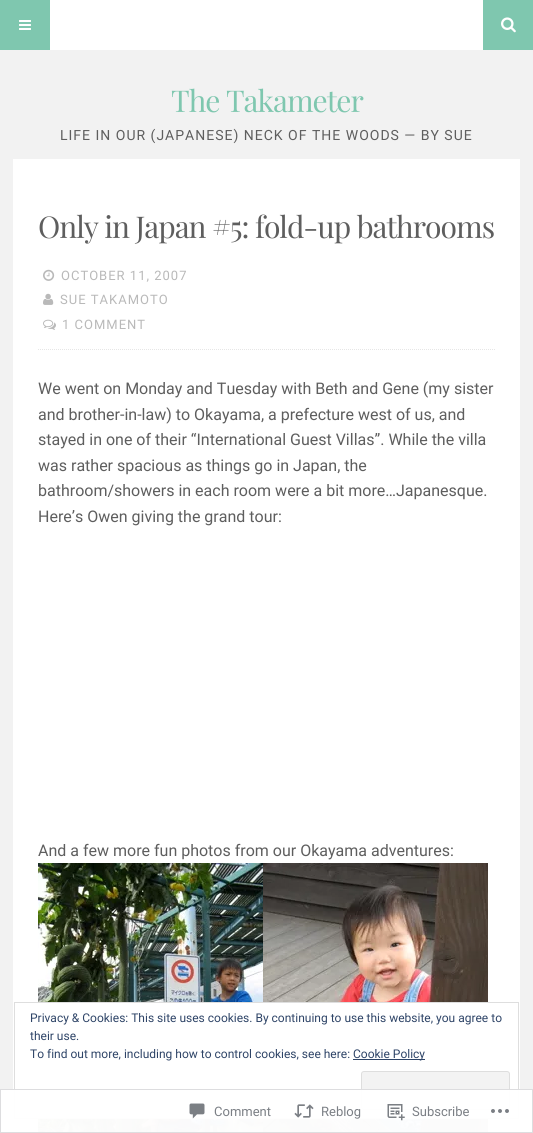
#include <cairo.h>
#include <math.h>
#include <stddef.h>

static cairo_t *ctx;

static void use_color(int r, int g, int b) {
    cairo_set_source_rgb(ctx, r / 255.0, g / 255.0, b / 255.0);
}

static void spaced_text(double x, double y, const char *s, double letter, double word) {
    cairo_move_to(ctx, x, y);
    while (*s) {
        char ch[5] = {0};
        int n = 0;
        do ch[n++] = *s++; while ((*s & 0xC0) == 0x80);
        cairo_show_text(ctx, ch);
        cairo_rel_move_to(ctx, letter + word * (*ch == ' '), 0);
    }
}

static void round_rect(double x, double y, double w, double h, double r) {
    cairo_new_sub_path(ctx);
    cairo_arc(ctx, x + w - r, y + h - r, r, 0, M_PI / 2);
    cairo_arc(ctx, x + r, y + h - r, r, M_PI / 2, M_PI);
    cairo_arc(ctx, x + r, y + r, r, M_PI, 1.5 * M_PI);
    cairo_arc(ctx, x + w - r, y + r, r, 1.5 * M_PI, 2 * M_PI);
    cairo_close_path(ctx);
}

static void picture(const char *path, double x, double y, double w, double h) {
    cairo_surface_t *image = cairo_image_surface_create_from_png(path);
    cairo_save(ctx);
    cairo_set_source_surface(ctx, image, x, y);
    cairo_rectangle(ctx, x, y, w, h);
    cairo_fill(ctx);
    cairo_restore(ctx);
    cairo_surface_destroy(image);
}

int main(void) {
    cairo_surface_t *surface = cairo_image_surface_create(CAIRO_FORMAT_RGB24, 533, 1133);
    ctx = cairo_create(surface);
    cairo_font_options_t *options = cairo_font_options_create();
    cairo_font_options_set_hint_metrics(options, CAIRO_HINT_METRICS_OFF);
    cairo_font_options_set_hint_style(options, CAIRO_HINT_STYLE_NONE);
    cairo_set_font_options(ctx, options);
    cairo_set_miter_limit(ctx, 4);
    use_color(242, 242, 242);
    cairo_paint(ctx);
    use_color(255, 255, 255);
    cairo_rectangle(ctx, 50, 0, 433, 50);
    cairo_fill(ctx);
    use_color(127, 199, 175);
    cairo_rectangle(ctx, 0, 0, 50, 50);
    cairo_fill(ctx);
    picture("img1.png", 19, 20, 12, 10);
    cairo_rectangle(ctx, 483, 0, 50, 50);
    cairo_fill(ctx);
    picture("img2.png", 501, 17, 15, 16);
    cairo_select_font_face(ctx, "Playfair Display", CAIRO_FONT_SLANT_NORMAL, CAIRO_FONT_WEIGHT_NORMAL);
    cairo_set_font_size(ctx, 30);
    spaced_text(171, 112, "The Takameter", -1, 0);
    cairo_select_font_face(ctx, "Roboto", CAIRO_FONT_SLANT_NORMAL, CAIRO_FONT_WEIGHT_NORMAL);
    cairo_set_font_size(ctx, 14);
    use_color(94, 94, 94);
    spaced_text(60, 140, "LIFE IN OUR (JAPANESE) NECK OF THE WOODS — BY SUE", 1, 0);
    use_color(255, 255, 255);
    cairo_rectangle(ctx, 13, 159, 507, 974);
    cairo_fill(ctx);
    cairo_select_font_face(ctx, "Playfair Display", CAIRO_FONT_SLANT_NORMAL, CAIRO_FONT_WEIGHT_NORMAL);
    cairo_set_font_size(ctx, 30);
    use_color(94, 94, 94);
    spaced_text(38, 238, "Only in Japan #5: fold-up bathrooms", -1, 0);
    cairo_new_path(ctx);
    cairo_move_to(ctx, 38, 349.5);
    cairo_line_to(ctx, 495, 349.5);
    use_color(230, 230, 230);
    cairo_set_line_width(ctx, 1);
    cairo_set_dash(ctx, (double[]){1, 1}, 2, 0);
    cairo_stroke(ctx);
    picture("img3.png", 43, 269, 12, 12);
    cairo_select_font_face(ctx, "Roboto", CAIRO_FONT_SLANT_NORMAL, CAIRO_FONT_WEIGHT_NORMAL);
    cairo_set_font_size(ctx, 13);
    use_color(185, 185, 185);
    spaced_text(61, 280, "OCTOBER 11, 2007", 1, 0);
    picture("img4.png", 43, 293, 11, 12);
    spaced_text(60, 304, "SUE TAKAMOTO", 1, 0);
    picture("img5.png", 43, 319, 13, 11);
    spaced_text(62, 329, "1 COMMENT", 1, 0);
    cairo_set_font_size(ctx, 16);
    use_color(94, 94, 94);
    cairo_move_to(ctx, 38, 394);
    cairo_show_text(ctx, "We went on Monday and Tuesday with Beth and Gene (my sister");
    cairo_move_to(ctx, 38, 420);
    cairo_show_text(ctx, "and brother-in-law) to Okayama, a prefecture west of us, and");
    cairo_move_to(ctx, 38, 445);
    cairo_show_text(ctx, "stayed in one of their “International Guest Villas”. While the villa");
    cairo_move_to(ctx, 38, 471);
    cairo_show_text(ctx, "was rather spacious as things go in Japan, the");
    cairo_move_to(ctx, 38, 496);
    cairo_show_text(ctx, "bathroom/showers in each room were a bit more…Japanesque.");
    cairo_move_to(ctx, 38, 522);
    cairo_show_text(ctx, "Here’s Owen giving the grand tour:");
    cairo_move_to(ctx, 38, 856);
    cairo_show_text(ctx, "And a few more fun photos from our Okayama adventures:");
    picture("img6.png", 38, 863, 225, 270);
    picture("img7.png", 263, 863, 225, 270);
    use_color(255, 255, 255);
    cairo_rectangle(ctx, 38, 1003, 450, 115);
    cairo_fill(ctx);
    cairo_rectangle(ctx, 14.5, 1002.5, 504, 116);
    use_color(222, 222, 222);
    cairo_set_dash(ctx, NULL, 0, 0);
    cairo_stroke(ctx);
    cairo_set_font_size(ctx, 12);
    use_color(46, 68, 103);
    cairo_move_to(ctx, 30, 1022);
    cairo_show_text(ctx, "Privacy & Cookies: This site uses cookies. By continuing to use this website, you agree to");
    cairo_move_to(ctx, 30, 1040);
    cairo_show_text(ctx, "their use.");
    cairo_move_to(ctx, 30, 1058);
    cairo_show_text(ctx, "To find out more, including how to control cookies, see here:");
    cairo_rectangle(ctx, 353, 1059, 72, 1);
    cairo_fill(ctx);
    cairo_move_to(ctx, 353, 1058);
    cairo_show_text(ctx, "Cookie Policy");
    use_color(243, 243, 243);
    round_rect(361.5, 1071.5, 148, 38, 2.5);
    cairo_fill_preserve(ctx);
    use_color(222, 222, 222);
    cairo_stroke(ctx);
    cairo_set_source_rgba(ctx, 1, 1, 1, 0.98);
    cairo_rectangle(ctx, 0, 1089, 533, 44);
    cairo_fill(ctx);
    cairo_rectangle(ctx, 0.5, 1089.5, 532, 43);
    cairo_set_source_rgba(ctx, 0.863, 0.863, 0.871, 0.98);
    cairo_stroke(ctx);
    picture("img8.png", 189, 1103, 16, 16);
    cairo_set_font_size(ctx, 13);
    use_color(123, 127, 133);
    cairo_move_to(ctx, 214, 1116);
    cairo_show_text(ctx, "Comment");
    picture("img9.png", 294, 1104, 20, 14);
    cairo_move_to(ctx, 321, 1116);
    cairo_show_text(ctx, "Reblog");
    picture("img10.png", 387, 1104, 18, 17);
    cairo_move_to(ctx, 412, 1116);
    cairo_show_text(ctx, "Subscribe");
    picture("img11.png", 491, 1109, 18, 4);
    cairo_surface_write_to_png(surface, "result.png");
    cairo_font_options_destroy(options);
    cairo_destroy(ctx);
    cairo_surface_destroy(surface);
    return 0;
}
